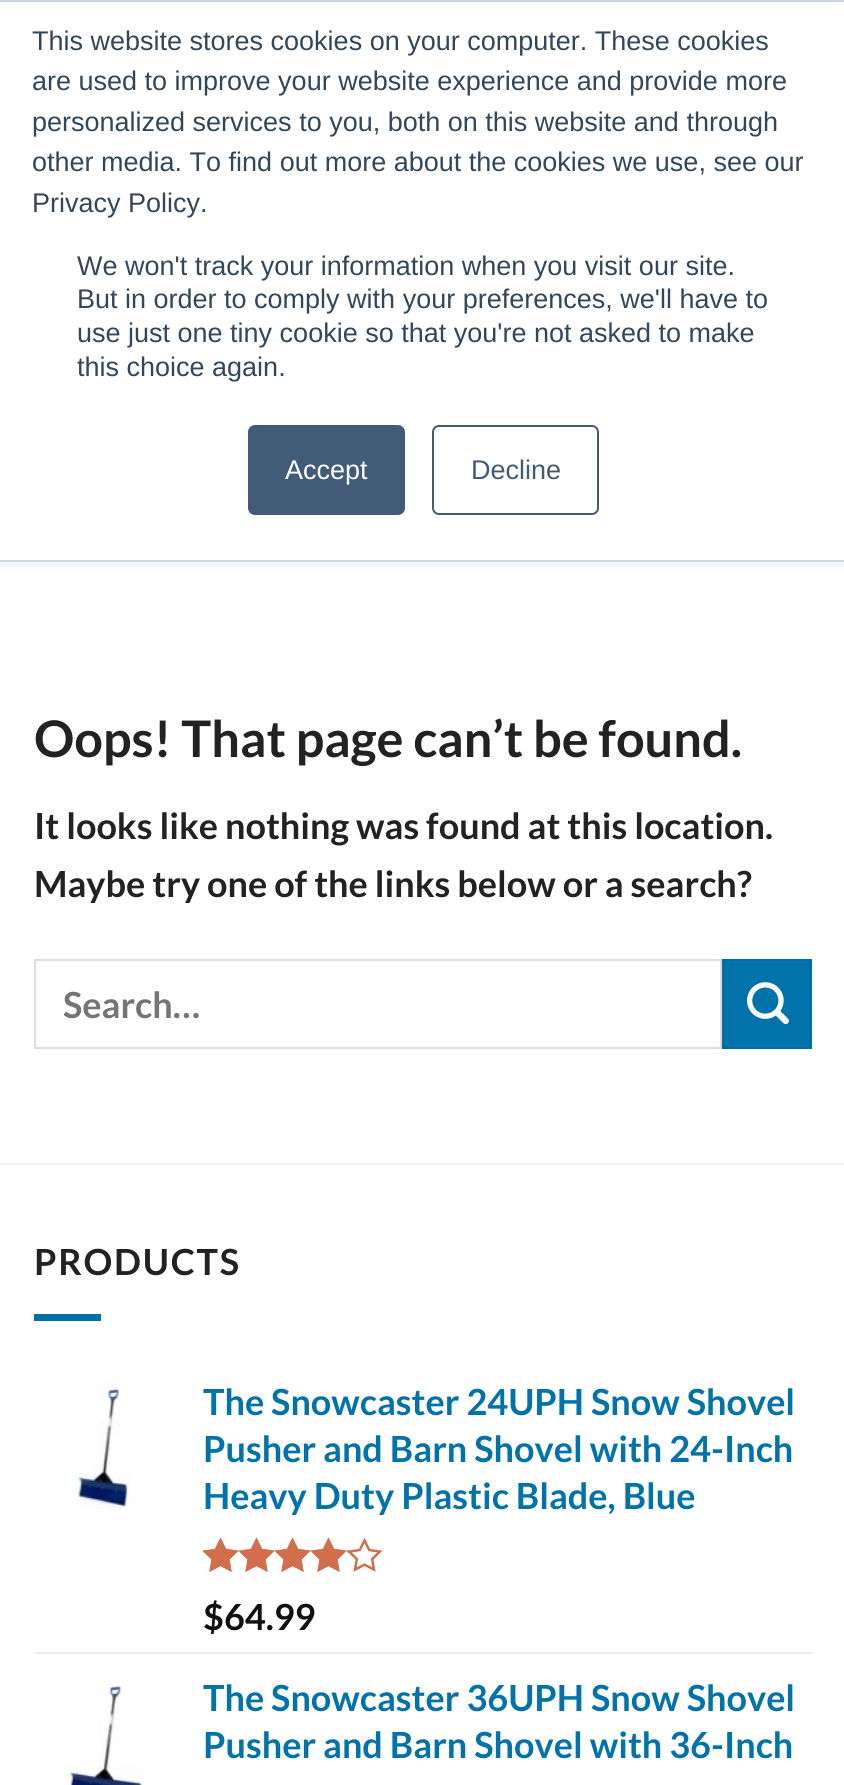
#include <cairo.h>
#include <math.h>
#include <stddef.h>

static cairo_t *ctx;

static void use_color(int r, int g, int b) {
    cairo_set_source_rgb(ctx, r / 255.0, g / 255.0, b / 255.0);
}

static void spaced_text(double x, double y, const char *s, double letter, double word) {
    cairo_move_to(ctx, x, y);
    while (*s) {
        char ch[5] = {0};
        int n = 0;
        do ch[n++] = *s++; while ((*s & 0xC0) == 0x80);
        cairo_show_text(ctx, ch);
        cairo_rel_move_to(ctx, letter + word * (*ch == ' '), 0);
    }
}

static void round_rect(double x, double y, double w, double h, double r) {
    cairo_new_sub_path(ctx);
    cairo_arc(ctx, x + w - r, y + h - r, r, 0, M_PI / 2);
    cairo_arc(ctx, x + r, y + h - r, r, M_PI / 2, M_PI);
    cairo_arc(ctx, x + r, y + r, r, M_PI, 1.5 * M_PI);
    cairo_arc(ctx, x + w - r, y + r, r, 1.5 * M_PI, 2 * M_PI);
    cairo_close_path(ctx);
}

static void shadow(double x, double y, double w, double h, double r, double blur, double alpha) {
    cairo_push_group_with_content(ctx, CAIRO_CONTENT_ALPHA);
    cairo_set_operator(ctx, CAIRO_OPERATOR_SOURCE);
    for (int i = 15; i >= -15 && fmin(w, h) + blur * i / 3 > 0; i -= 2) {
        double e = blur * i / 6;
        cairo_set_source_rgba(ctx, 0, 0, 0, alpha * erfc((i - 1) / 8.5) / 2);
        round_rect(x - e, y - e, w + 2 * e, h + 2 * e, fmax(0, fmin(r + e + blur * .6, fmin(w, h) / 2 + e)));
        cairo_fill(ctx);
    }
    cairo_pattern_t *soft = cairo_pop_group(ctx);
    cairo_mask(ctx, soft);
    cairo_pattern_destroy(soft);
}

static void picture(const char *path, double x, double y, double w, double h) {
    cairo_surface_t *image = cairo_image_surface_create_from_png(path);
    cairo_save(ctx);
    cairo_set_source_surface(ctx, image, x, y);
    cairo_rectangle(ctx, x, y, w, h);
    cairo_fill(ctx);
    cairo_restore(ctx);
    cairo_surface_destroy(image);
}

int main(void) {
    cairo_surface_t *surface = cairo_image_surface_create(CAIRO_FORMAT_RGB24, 844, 1785);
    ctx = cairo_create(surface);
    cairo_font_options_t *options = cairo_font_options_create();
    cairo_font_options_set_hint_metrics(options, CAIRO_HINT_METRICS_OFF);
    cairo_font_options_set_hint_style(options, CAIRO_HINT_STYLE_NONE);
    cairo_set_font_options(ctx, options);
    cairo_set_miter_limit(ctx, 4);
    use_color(255, 255, 255);
    cairo_paint(ctx);
    use_color(234, 240, 246);
    shadow(0, 2, 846, 563, 0, 5.5, 1);
    use_color(255, 255, 255);
    cairo_rectangle(ctx, 0, 2, 844, 561);
    cairo_fill(ctx);
    use_color(203, 214, 226);
    cairo_rectangle(ctx, 0, 0, 844, 2);
    cairo_fill(ctx);
    cairo_rectangle(ctx, 0, 560, 844, 2);
    cairo_fill(ctx);
    cairo_select_font_face(ctx, "Liberation Sans", CAIRO_FONT_SLANT_NORMAL, CAIRO_FONT_WEIGHT_NORMAL);
    cairo_set_font_size(ctx, 27);
    use_color(51, 71, 91);
    cairo_move_to(ctx, 32, 50);
    cairo_show_text(ctx, "This website stores cookies on your computer. These cookies");
    cairo_move_to(ctx, 32, 90);
    cairo_show_text(ctx, "are used to improve your website experience and provide more");
    cairo_move_to(ctx, 32, 131);
    cairo_show_text(ctx, "personalized services to you, both on this website and through");
    cairo_move_to(ctx, 32, 171);
    cairo_show_text(ctx, "other media. To find out more about the cookies we use, see our");
    cairo_move_to(ctx, 32, 212);
    cairo_show_text(ctx, "Privacy Policy.");
    cairo_move_to(ctx, 77, 275);
    cairo_show_text(ctx, "We won't track your information when you visit our site.");
    cairo_move_to(ctx, 77, 308);
    cairo_show_text(ctx, "But in order to comply with your preferences, we'll have to");
    cairo_move_to(ctx, 77, 342);
    cairo_show_text(ctx, "use just one tiny cookie so that you're not asked to make");
    cairo_move_to(ctx, 77, 376);
    cairo_show_text(ctx, "this choice again.");
    use_color(66, 91, 118);
    round_rect(249, 426, 155, 88, 6);
    cairo_fill_preserve(ctx);
    cairo_stroke(ctx);
    use_color(255, 255, 255);
    cairo_move_to(ctx, 285, 479);
    cairo_show_text(ctx, "Accept");
    round_rect(433, 426, 165, 88, 6);
    use_color(66, 91, 118);
    cairo_stroke(ctx);
    cairo_move_to(ctx, 471, 479);
    cairo_show_text(ctx, "Decline");
    cairo_select_font_face(ctx, "Lato", CAIRO_FONT_SLANT_NORMAL, CAIRO_FONT_WEIGHT_BOLD);
    cairo_set_font_size(ctx, 50.4);
    use_color(34, 34, 34);
    cairo_move_to(ctx, 34, 757);
    cairo_show_text(ctx, "Oops! That page can’t be found.");
    cairo_set_font_size(ctx, 36);
    cairo_move_to(ctx, 34, 839);
    cairo_show_text(ctx, "It looks like nothing was found at this location.");
    cairo_move_to(ctx, 34, 897);
    cairo_show_text(ctx, "Maybe try one of the links below or a search?");
    cairo_rectangle(ctx, 35, 960, 686, 88);
    use_color(221, 221, 221);
    cairo_stroke(ctx);
    use_color(117, 117, 117);
    cairo_move_to(ctx, 63, 1018);
    cairo_show_text(ctx, "Search…");
    use_color(1, 115, 170);
    cairo_rectangle(ctx, 723, 960, 88, 88);
    cairo_fill_preserve(ctx);
    use_color(1, 109, 162);
    cairo_stroke(ctx);
    picture("img1.png", 747, 982, 42, 43);
    use_color(242, 242, 242);
    cairo_rectangle(ctx, 0, 1163, 844, 2);
    cairo_fill(ctx);
    use_color(34, 34, 34);
    spaced_text(34, 1275, "PRODUCTS", 1.75, 0);
    use_color(1, 115, 170);
    cairo_rectangle(ctx, 34, 1314, 67, 7);
    cairo_fill(ctx);
    picture("img2.png", 76, 1379, 65, 131);
    cairo_save(ctx);
    cairo_rectangle(ctx, 203, 1379, 609, 140);
    cairo_clip(ctx);
    cairo_move_to(ctx, 203, 1415);
    cairo_show_text(ctx, "The Snowcaster 24UPH Snow Shovel");
    cairo_restore(ctx);
    cairo_move_to(ctx, 203, 1462);
    cairo_show_text(ctx, "Pusher and Barn Shovel with 24-Inch");
    cairo_move_to(ctx, 203, 1509);
    cairo_show_text(ctx, "Heavy Duty Plastic Blade, Blue");
    picture("img3.png", 203, 1537, 180, 35);
    picture("img4.png", 203, 1537, 146, 35);
    use_color(17, 17, 17);
    cairo_move_to(ctx, 203, 1630);
    cairo_show_text(ctx, "$64.99");
    use_color(236, 236, 236);
    cairo_rectangle(ctx, 34, 1652, 778, 2);
    cairo_fill(ctx);
    picture("img5.png", 56, 1676, 86, 109);
    cairo_save(ctx);
    cairo_rectangle(ctx, 203, 1676, 609, 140);
    cairo_clip(ctx);
    use_color(1, 115, 170);
    cairo_move_to(ctx, 203, 1711);
    cairo_show_text(ctx, "The Snowcaster 36UPH Snow Shovel");
    cairo_restore(ctx);
    use_color(1, 115, 170);
    cairo_move_to(ctx, 203, 1758);
    cairo_show_text(ctx, "Pusher and Barn Shovel with 36-Inch");
    cairo_surface_write_to_png(surface, "result.png");
    cairo_font_options_destroy(options);
    cairo_destroy(ctx);
    cairo_surface_destroy(surface);
    return 0;
}
